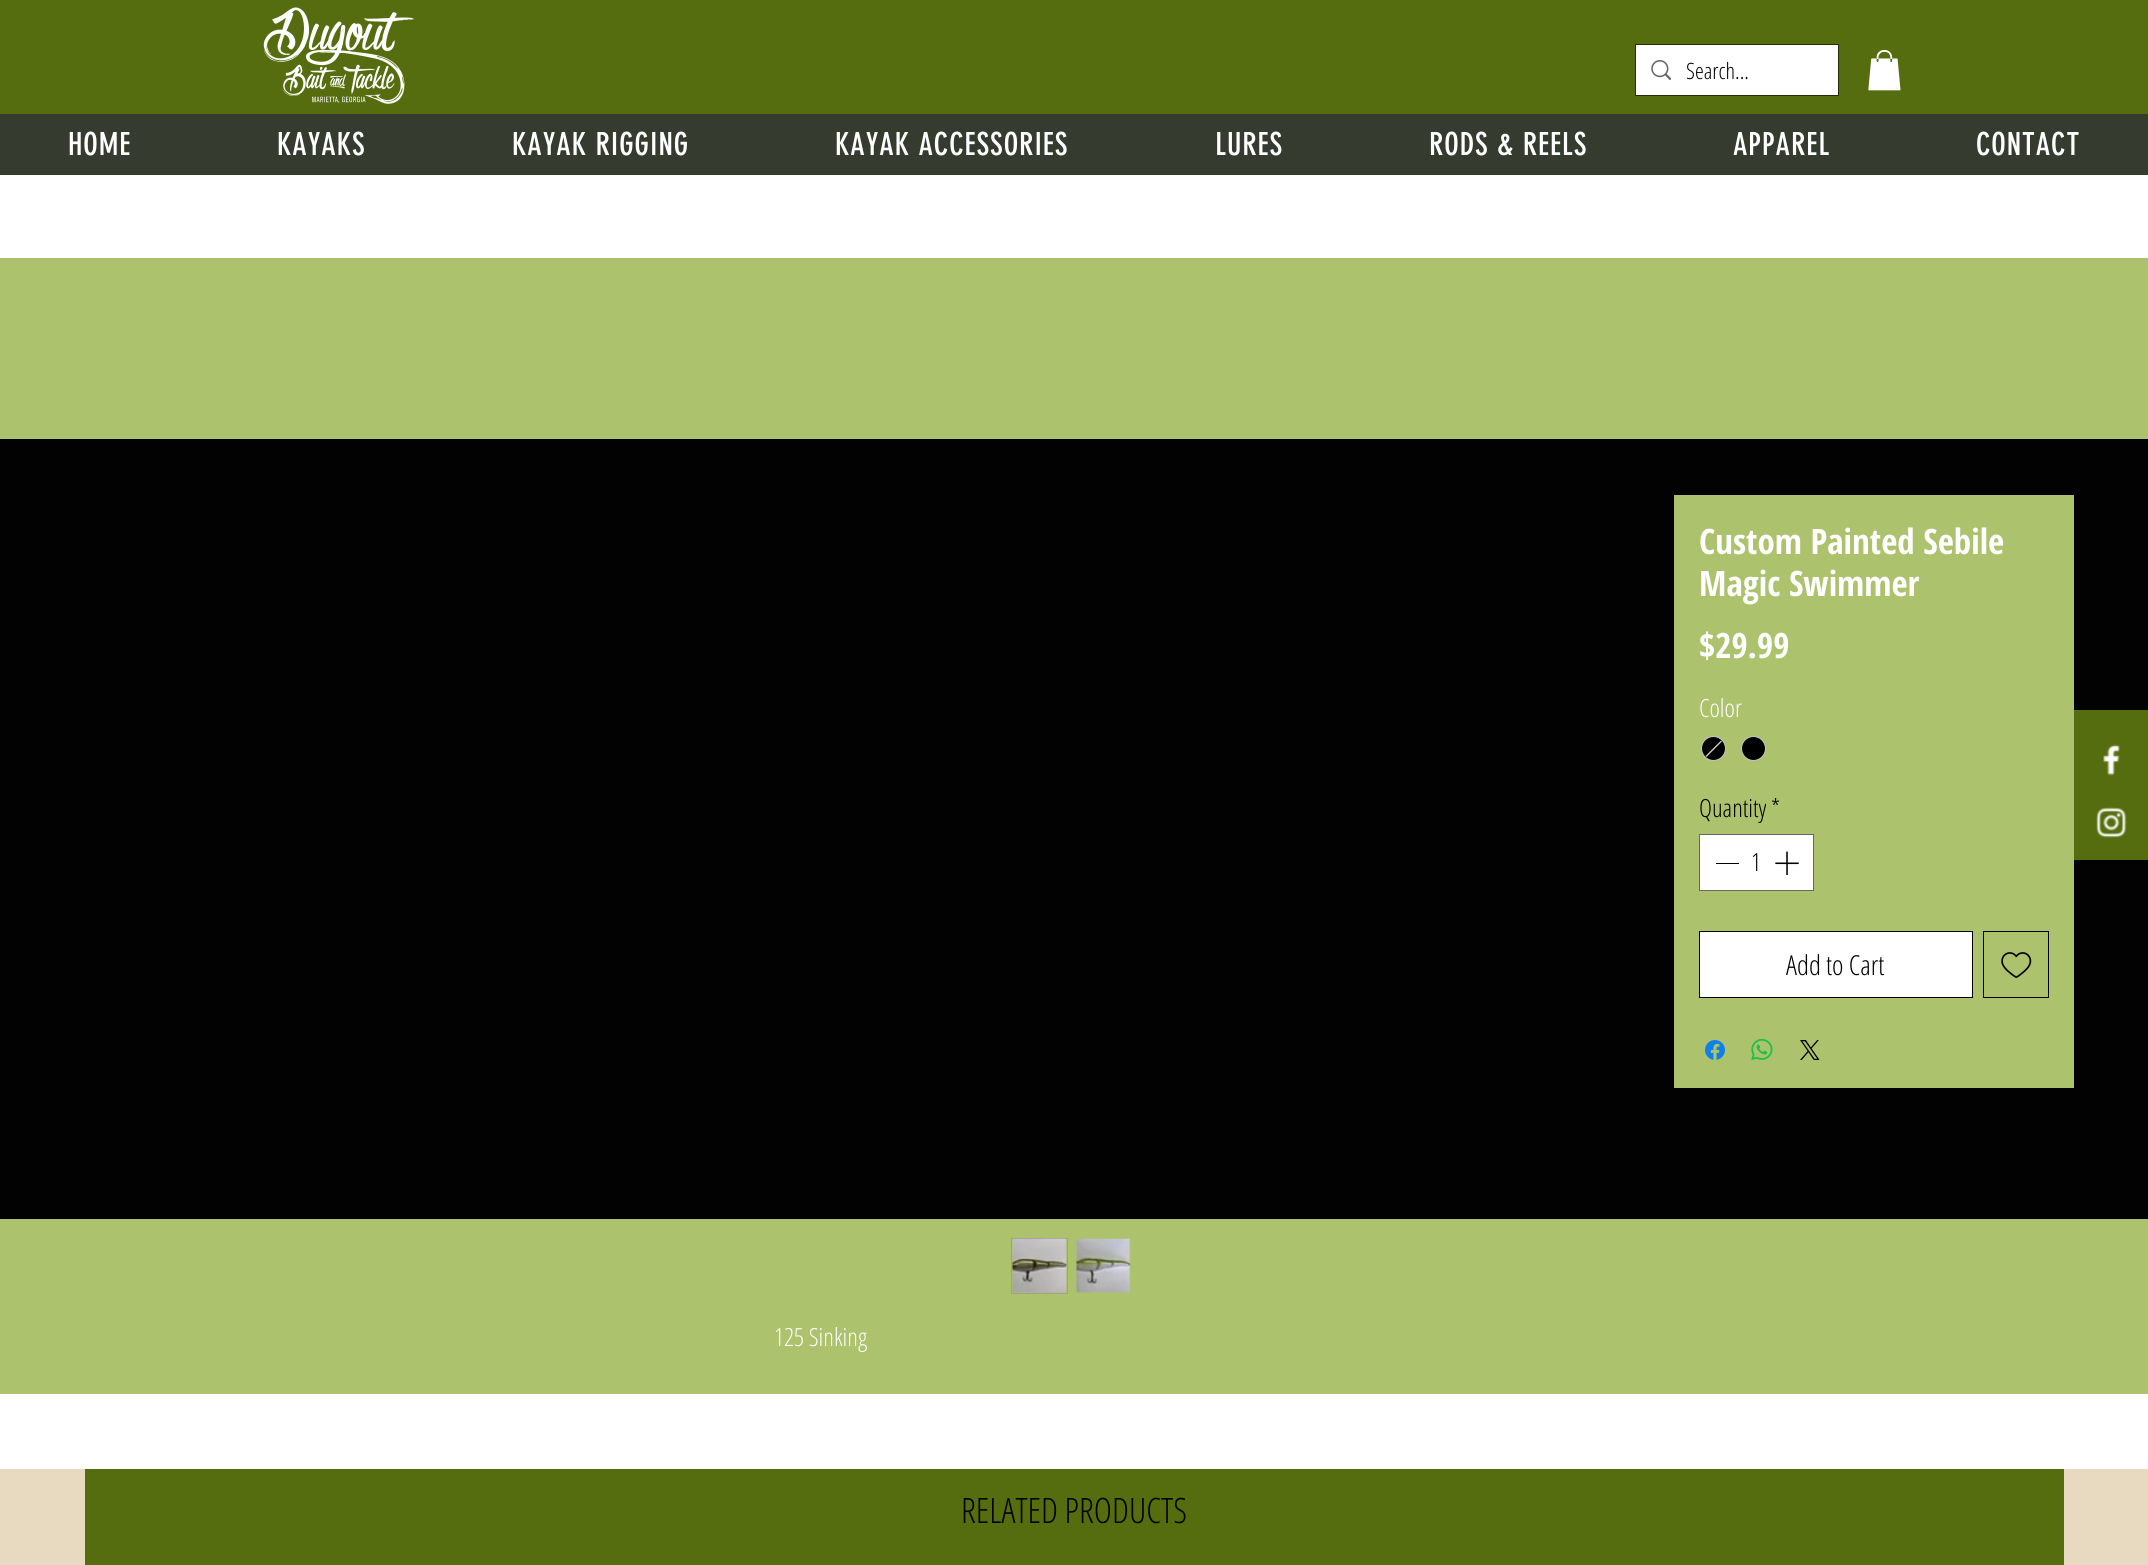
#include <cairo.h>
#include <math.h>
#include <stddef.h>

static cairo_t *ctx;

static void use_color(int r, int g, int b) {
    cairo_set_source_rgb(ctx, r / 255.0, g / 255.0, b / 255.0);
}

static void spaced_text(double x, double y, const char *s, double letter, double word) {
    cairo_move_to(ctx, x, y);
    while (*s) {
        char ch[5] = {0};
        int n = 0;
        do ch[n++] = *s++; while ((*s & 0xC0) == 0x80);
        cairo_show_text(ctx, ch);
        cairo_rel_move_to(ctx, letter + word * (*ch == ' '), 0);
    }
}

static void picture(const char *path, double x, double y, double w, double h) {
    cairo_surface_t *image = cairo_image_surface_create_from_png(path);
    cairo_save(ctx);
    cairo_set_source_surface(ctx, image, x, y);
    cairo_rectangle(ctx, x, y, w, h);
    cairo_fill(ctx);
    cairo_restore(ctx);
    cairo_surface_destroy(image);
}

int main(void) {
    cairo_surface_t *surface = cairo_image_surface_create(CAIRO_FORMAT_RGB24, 2148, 1565);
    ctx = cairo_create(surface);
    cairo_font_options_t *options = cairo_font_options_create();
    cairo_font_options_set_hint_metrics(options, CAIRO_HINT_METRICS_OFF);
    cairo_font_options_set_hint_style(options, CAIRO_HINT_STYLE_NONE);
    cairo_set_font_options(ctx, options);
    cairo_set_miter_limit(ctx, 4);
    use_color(232, 217, 193);
    cairo_paint(ctx);
    use_color(85, 109, 14);
    cairo_rectangle(ctx, 0, 0, 2148, 114);
    cairo_fill(ctx);
    picture("img1.png", 263, 7, 151, 97);
    cairo_rectangle(ctx, 1635.5, 44.5, 203, 51);
    use_color(35, 45, 7);
    cairo_set_line_width(ctx, 1);
    cairo_stroke(ctx);
    use_color(255, 255, 255);
    cairo_rectangle(ctx, 1636, 45, 202, 50);
    cairo_fill(ctx);
    picture("img2.png", 1651, 60, 20, 20);
    cairo_select_font_face(ctx, "Open Sans Condensed Light", CAIRO_FONT_SLANT_NORMAL, CAIRO_FONT_WEIGHT_NORMAL);
    cairo_set_font_size(ctx, 22.5);
    use_color(2, 2, 2);
    cairo_move_to(ctx, 1686, 79);
    cairo_show_text(ctx, "Search...");
    picture("img3.png", 1868, 50, 33, 41);
    use_color(54, 59, 48);
    cairo_rectangle(ctx, 0, 114, 2148, 61);
    cairo_fill(ctx);
    cairo_select_font_face(ctx, "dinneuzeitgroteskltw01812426", CAIRO_FONT_SLANT_NORMAL, CAIRO_FONT_WEIGHT_NORMAL);
    cairo_set_font_size(ctx, 31.25);
    use_color(255, 255, 255);
    spaced_text(68, 155, "HOME", 0.9, 0);
    spaced_text(277, 155, "KAYAKS", 0.9, 0);
    spaced_text(512, 155, "KAYAK RIGGING", 0.9, 0);
    spaced_text(835, 155, "KAYAK ACCESSORIES", 0.9, 0);
    spaced_text(1215, 155, "LURES", 0.9, 0);
    spaced_text(1429, 155, "RODS & REELS", 0.9, 0);
    spaced_text(1733, 155, "APPAREL", 0.9, 0);
    spaced_text(1976, 155, "CONTACT", 0.9, 0);
    cairo_rectangle(ctx, 0, 175, 2148, 83);
    cairo_fill(ctx);
    use_color(173, 194, 109);
    cairo_rectangle(ctx, 0, 258, 2148, 1136);
    cairo_fill(ctx);
    use_color(2, 2, 2);
    cairo_rectangle(ctx, 0, 439, 2148, 780);
    cairo_fill(ctx);
    cairo_rectangle(ctx, 1011.5, 1238.5, 56, 55);
    use_color(162, 156, 156);
    cairo_stroke(ctx);
    picture("img4.png", 1012, 1238, 55, 55);
    picture("img5.png", 1075, 1238, 56, 55);
    use_color(173, 194, 109);
    cairo_rectangle(ctx, 1674, 495, 400, 593);
    cairo_fill(ctx);
    cairo_select_font_face(ctx, "Open Sans Condensed", CAIRO_FONT_SLANT_NORMAL, CAIRO_FONT_WEIGHT_BOLD);
    cairo_set_font_size(ctx, 35);
    use_color(255, 255, 255);
    cairo_move_to(ctx, 1699, 554);
    cairo_show_text(ctx, "Custom Painted Sebile");
    cairo_move_to(ctx, 1699, 596);
    cairo_show_text(ctx, "Magic Swimmer");
    cairo_move_to(ctx, 1699, 658);
    cairo_show_text(ctx, "$29.99");
    cairo_select_font_face(ctx, "Open Sans Condensed Light", CAIRO_FONT_SLANT_NORMAL, CAIRO_FONT_WEIGHT_NORMAL);
    cairo_set_font_size(ctx, 25);
    cairo_move_to(ctx, 1699, 717);
    cairo_show_text(ctx, "Color");
    use_color(0, 0, 0);
    cairo_new_path(ctx);
    cairo_arc(ctx, 1713.5, 748.5, 12, 0, 2 * M_PI);
    cairo_fill_preserve(ctx);
    use_color(201, 201, 201);
    cairo_stroke(ctx);
    cairo_new_path(ctx);
    cairo_move_to(ctx, 1722, 741.5);
    cairo_line_to(ctx, 1706.5, 757);
    cairo_line_to(ctx, 1705.5, 756);
    cairo_line_to(ctx, 1721, 740.5);
    cairo_close_path(ctx);
    cairo_fill(ctx);
    use_color(0, 0, 0);
    cairo_arc(ctx, 1753.5, 748.5, 12, 0, 2 * M_PI);
    cairo_fill_preserve(ctx);
    use_color(201, 201, 201);
    cairo_stroke(ctx);
    use_color(2, 2, 2);
    cairo_move_to(ctx, 1699, 817);
    cairo_show_text(ctx, "Quantity");
    cairo_move_to(ctx, 1771, 817);
    cairo_show_text(ctx, "*");
    use_color(255, 255, 255);
    cairo_rectangle(ctx, 1699.5, 834.5, 114, 56);
    cairo_fill_preserve(ctx);
    use_color(103, 103, 103);
    cairo_stroke(ctx);
    use_color(2, 2, 2);
    cairo_rectangle(ctx, 1716, 863, 23, 1);
    cairo_fill(ctx);
    cairo_move_to(ctx, 1751, 871);
    cairo_show_text(ctx, "1");
    picture("img6.png", 1775, 851, 24, 24);
    use_color(255, 255, 255);
    cairo_rectangle(ctx, 1699.5, 931.5, 273, 66);
    cairo_fill_preserve(ctx);
    use_color(2, 2, 2);
    cairo_stroke(ctx);
    cairo_set_font_size(ctx, 27.5);
    cairo_move_to(ctx, 1786, 975);
    cairo_show_text(ctx, "Add to Cart");
    cairo_rectangle(ctx, 1983.5, 931.5, 65, 66);
    cairo_stroke(ctx);
    picture("img7.png", 2001, 952, 31, 26);
    picture("img8.png", 1705, 1040, 20, 20);
    picture("img9.png", 1751, 1038, 22, 23);
    picture("img10.png", 1800, 1040, 20, 20);
    cairo_set_font_size(ctx, 25);
    use_color(255, 255, 255);
    cairo_move_to(ctx, 774, 1346);
    cairo_show_text(ctx, "125 Sinking");
    cairo_rectangle(ctx, 0, 1394, 2148, 75);
    cairo_fill(ctx);
    use_color(85, 109, 14);
    cairo_rectangle(ctx, 85, 1469, 1979, 96);
    cairo_fill(ctx);
    cairo_set_font_size(ctx, 35);
    use_color(2, 2, 2);
    cairo_move_to(ctx, 961, 1523);
    cairo_show_text(ctx, "RELATED PRODUCTS");
    use_color(85, 109, 14);
    cairo_rectangle(ctx, 2074, 710, 74, 150);
    cairo_fill(ctx);
    picture("img11.png", 2103, 744, 17, 32);
    picture("img12.png", 2096, 807, 31, 31);
    cairo_surface_write_to_png(surface, "result.png");
    cairo_font_options_destroy(options);
    cairo_destroy(ctx);
    cairo_surface_destroy(surface);
    return 0;
}
